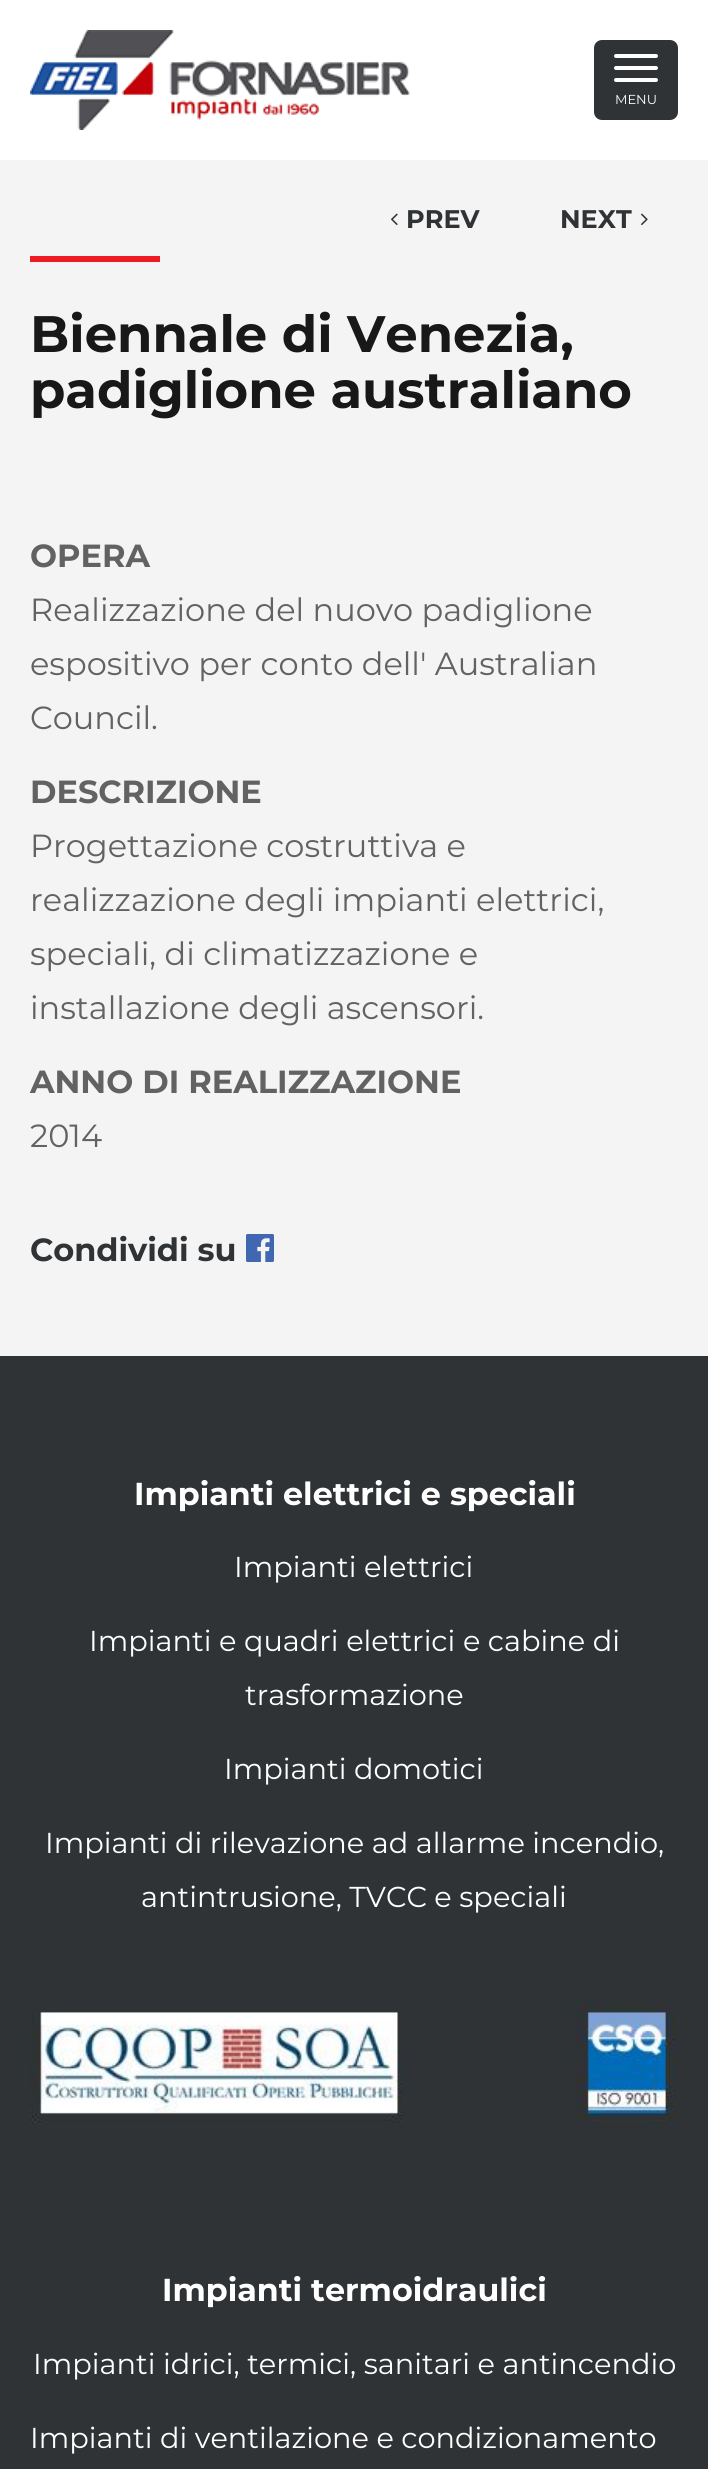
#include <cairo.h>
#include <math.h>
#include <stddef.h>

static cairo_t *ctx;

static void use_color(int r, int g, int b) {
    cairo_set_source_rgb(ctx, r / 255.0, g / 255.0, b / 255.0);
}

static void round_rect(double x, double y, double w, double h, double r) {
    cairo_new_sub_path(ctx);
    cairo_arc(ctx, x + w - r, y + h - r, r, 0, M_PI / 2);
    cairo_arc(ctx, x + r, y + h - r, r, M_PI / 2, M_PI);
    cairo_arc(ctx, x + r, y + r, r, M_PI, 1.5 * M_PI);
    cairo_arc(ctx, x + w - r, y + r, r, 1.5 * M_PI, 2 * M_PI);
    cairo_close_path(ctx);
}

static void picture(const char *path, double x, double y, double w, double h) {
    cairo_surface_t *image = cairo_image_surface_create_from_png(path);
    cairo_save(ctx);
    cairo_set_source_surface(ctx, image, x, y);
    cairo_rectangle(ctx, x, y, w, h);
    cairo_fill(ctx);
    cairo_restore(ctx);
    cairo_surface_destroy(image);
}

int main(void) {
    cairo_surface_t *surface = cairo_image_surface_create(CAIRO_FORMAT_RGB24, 708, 2469);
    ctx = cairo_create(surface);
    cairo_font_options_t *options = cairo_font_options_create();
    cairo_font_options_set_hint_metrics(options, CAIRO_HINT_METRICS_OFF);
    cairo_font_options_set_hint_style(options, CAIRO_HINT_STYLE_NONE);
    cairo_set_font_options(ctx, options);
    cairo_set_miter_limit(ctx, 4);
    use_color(244, 244, 244);
    cairo_paint(ctx);
    use_color(255, 255, 255);
    cairo_rectangle(ctx, 0, 0, 708, 160);
    cairo_fill(ctx);
    picture("img1.png", 30, 30, 380, 100);
    use_color(48, 51, 53);
    round_rect(594, 40, 84, 80, 8);
    cairo_fill(ctx);
    use_color(255, 255, 255);
    round_rect(614, 54, 44, 4, 2);
    cairo_fill(ctx);
    round_rect(614, 66, 44, 4, 2);
    cairo_fill(ctx);
    round_rect(614, 78, 44, 4, 2);
    cairo_fill(ctx);
    cairo_select_font_face(ctx, "Montserrat", CAIRO_FONT_SLANT_NORMAL, CAIRO_FONT_WEIGHT_NORMAL);
    cairo_set_font_size(ctx, 13);
    cairo_move_to(ctx, 615, 104);
    cairo_show_text(ctx, "MENU");
    picture("img2.png", 391, 213, 7, 13);
    cairo_select_font_face(ctx, "Montserrat", CAIRO_FONT_SLANT_NORMAL, CAIRO_FONT_WEIGHT_BOLD);
    cairo_set_font_size(ctx, 25.5);
    use_color(48, 51, 53);
    cairo_move_to(ctx, 406, 228);
    cairo_show_text(ctx, "PREV");
    cairo_move_to(ctx, 560, 228);
    cairo_show_text(ctx, "NEXT");
    picture("img3.png", 641, 213, 7, 13);
    use_color(237, 28, 36);
    cairo_rectangle(ctx, 30, 256, 130, 6);
    cairo_fill(ctx);
    cairo_set_font_size(ctx, 51.25);
    use_color(24, 24, 24);
    cairo_move_to(ctx, 30, 352);
    cairo_show_text(ctx, "Biennale di Venezia,");
    cairo_move_to(ctx, 30, 408);
    cairo_show_text(ctx, "padiglione australiano");
    cairo_set_font_size(ctx, 32);
    use_color(98, 98, 98);
    cairo_move_to(ctx, 30, 567);
    cairo_show_text(ctx, "OPERA");
    cairo_select_font_face(ctx, "Montserrat", CAIRO_FONT_SLANT_NORMAL, CAIRO_FONT_WEIGHT_NORMAL);
    cairo_move_to(ctx, 30, 621);
    cairo_show_text(ctx, "Realizzazione del nuovo padiglione");
    cairo_move_to(ctx, 30, 675);
    cairo_show_text(ctx, "espositivo per conto dell' Australian");
    cairo_move_to(ctx, 30, 729);
    cairo_show_text(ctx, "Council.");
    cairo_select_font_face(ctx, "Montserrat", CAIRO_FONT_SLANT_NORMAL, CAIRO_FONT_WEIGHT_BOLD);
    cairo_move_to(ctx, 30, 803);
    cairo_show_text(ctx, "DESCRIZIONE");
    cairo_select_font_face(ctx, "Montserrat", CAIRO_FONT_SLANT_NORMAL, CAIRO_FONT_WEIGHT_NORMAL);
    cairo_move_to(ctx, 30, 857);
    cairo_show_text(ctx, "Progettazione costruttiva e");
    cairo_move_to(ctx, 30, 911);
    cairo_show_text(ctx, "realizzazione degli impianti elettrici,");
    cairo_move_to(ctx, 30, 965);
    cairo_show_text(ctx, "speciali, di climatizzazione e");
    cairo_move_to(ctx, 30, 1019);
    cairo_show_text(ctx, "installazione degli ascensori.");
    cairo_select_font_face(ctx, "Montserrat", CAIRO_FONT_SLANT_NORMAL, CAIRO_FONT_WEIGHT_BOLD);
    cairo_move_to(ctx, 30, 1093);
    cairo_show_text(ctx, "ANNO DI REALIZZAZIONE");
    cairo_select_font_face(ctx, "Montserrat", CAIRO_FONT_SLANT_NORMAL, CAIRO_FONT_WEIGHT_NORMAL);
    cairo_move_to(ctx, 30, 1147);
    cairo_show_text(ctx, "2014");
    cairo_select_font_face(ctx, "Montserrat", CAIRO_FONT_SLANT_NORMAL, CAIRO_FONT_WEIGHT_BOLD);
    use_color(48, 51, 53);
    cairo_move_to(ctx, 30, 1261);
    cairo_show_text(ctx, "Condividi su");
    picture("img4.png", 246, 1234, 28, 28);
    cairo_rectangle(ctx, 0, 1356, 708, 1113);
    cairo_fill(ctx);
    cairo_set_font_size(ctx, 31.75);
    use_color(255, 255, 255);
    cairo_move_to(ctx, 134, 1505);
    cairo_show_text(ctx, "Impianti elettrici e speciali");
    cairo_select_font_face(ctx, "Montserrat", CAIRO_FONT_SLANT_NORMAL, CAIRO_FONT_WEIGHT_NORMAL);
    cairo_set_font_size(ctx, 28.8);
    cairo_move_to(ctx, 234, 1577);
    cairo_show_text(ctx, "Impianti elettrici");
    cairo_move_to(ctx, 89, 1651);
    cairo_show_text(ctx, "Impianti e quadri elettrici e cabine di");
    cairo_move_to(ctx, 245, 1705);
    cairo_show_text(ctx, "trasformazione");
    cairo_move_to(ctx, 224, 1779);
    cairo_show_text(ctx, "Impianti domotici");
    cairo_move_to(ctx, 45, 1853);
    cairo_show_text(ctx, "Impianti di rilevazione ad allarme incendio,");
    cairo_move_to(ctx, 141, 1907);
    cairo_show_text(ctx, "antintrusione, TVCC e speciali");
    picture("img5.png", 30, 2000, 646, 124);
    cairo_select_font_face(ctx, "Montserrat", CAIRO_FONT_SLANT_NORMAL, CAIRO_FONT_WEIGHT_BOLD);
    cairo_set_font_size(ctx, 31.75);
    cairo_move_to(ctx, 162, 2301);
    cairo_show_text(ctx, "Impianti termoidraulici");
    cairo_select_font_face(ctx, "Montserrat", CAIRO_FONT_SLANT_NORMAL, CAIRO_FONT_WEIGHT_NORMAL);
    cairo_set_font_size(ctx, 28.8);
    cairo_move_to(ctx, 33, 2374);
    cairo_show_text(ctx, "Impianti idrici, termici, sanitari e antincendio");
    cairo_move_to(ctx, 30, 2448);
    cairo_show_text(ctx, "Impianti di ventilazione e condizionamento");
    cairo_surface_write_to_png(surface, "result.png");
    cairo_font_options_destroy(options);
    cairo_destroy(ctx);
    cairo_surface_destroy(surface);
    return 0;
}
